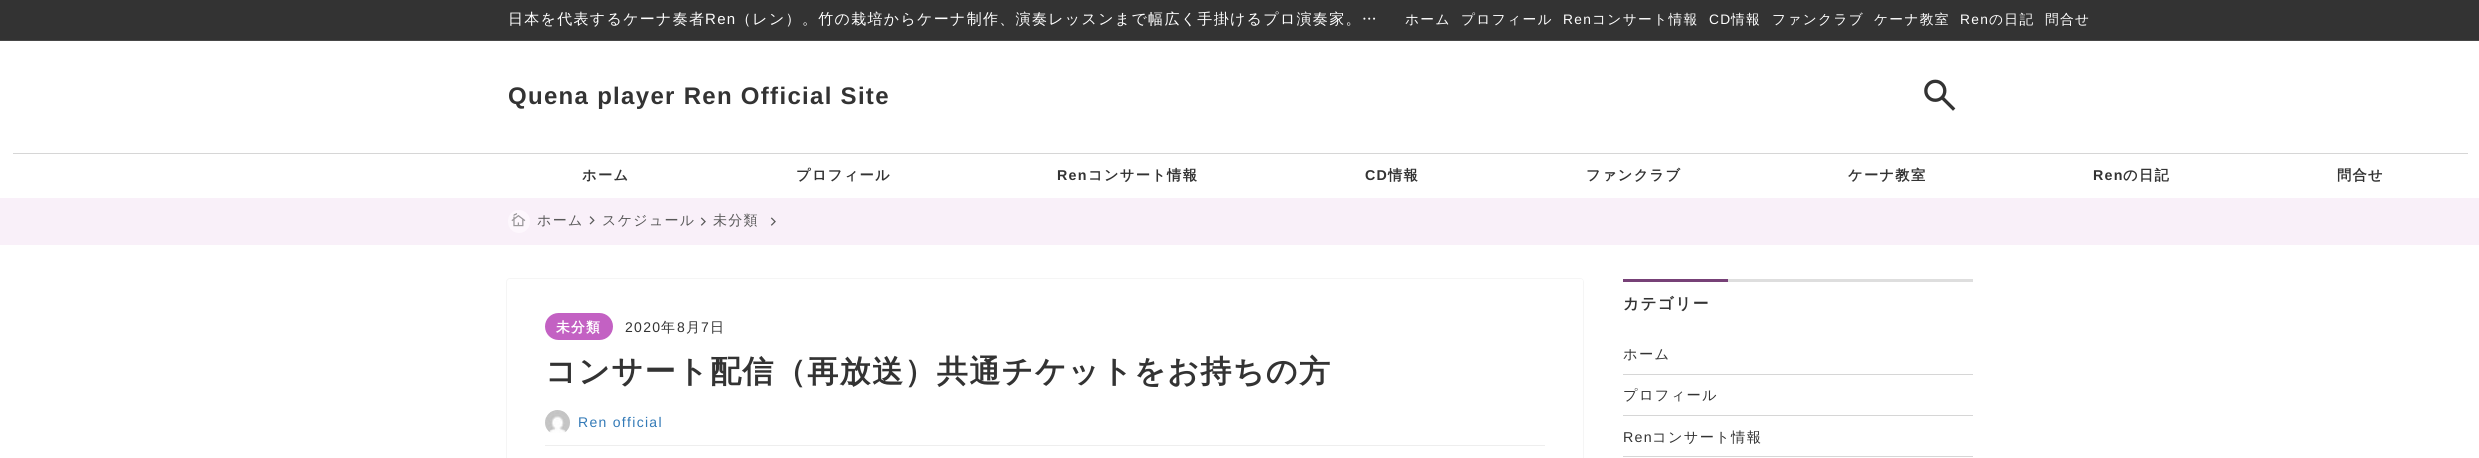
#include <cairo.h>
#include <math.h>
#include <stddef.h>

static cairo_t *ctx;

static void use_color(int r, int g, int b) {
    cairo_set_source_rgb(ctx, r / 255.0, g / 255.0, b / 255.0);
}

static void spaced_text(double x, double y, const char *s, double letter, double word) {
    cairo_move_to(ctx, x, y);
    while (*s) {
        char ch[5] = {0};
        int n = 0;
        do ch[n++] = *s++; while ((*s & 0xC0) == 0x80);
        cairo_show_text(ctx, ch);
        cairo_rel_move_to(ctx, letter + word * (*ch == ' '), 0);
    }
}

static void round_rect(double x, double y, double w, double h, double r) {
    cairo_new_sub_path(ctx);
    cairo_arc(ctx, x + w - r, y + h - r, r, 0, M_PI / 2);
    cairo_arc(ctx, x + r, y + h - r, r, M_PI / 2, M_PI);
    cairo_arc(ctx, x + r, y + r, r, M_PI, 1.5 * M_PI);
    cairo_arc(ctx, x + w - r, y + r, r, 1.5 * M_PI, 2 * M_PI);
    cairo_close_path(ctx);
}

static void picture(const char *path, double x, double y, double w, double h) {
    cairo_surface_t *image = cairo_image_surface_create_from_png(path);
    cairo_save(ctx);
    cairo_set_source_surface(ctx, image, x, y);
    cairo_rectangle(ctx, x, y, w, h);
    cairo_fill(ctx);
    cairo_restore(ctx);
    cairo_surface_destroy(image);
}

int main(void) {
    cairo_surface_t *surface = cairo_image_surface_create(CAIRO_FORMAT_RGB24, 2479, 458);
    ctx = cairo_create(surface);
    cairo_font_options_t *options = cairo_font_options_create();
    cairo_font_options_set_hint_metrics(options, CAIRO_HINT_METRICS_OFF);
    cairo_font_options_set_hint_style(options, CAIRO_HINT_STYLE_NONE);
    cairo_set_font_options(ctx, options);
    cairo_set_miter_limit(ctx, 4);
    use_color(255, 255, 255);
    cairo_paint(ctx);
    use_color(51, 51, 51);
    cairo_rectangle(ctx, 0, 0, 2479, 40);
    cairo_fill(ctx);
    use_color(71, 71, 71);
    cairo_rectangle(ctx, 0, 40, 2479, 1);
    cairo_fill(ctx);
    cairo_select_font_face(ctx, "WenQuanYi Zen Hei Medium", CAIRO_FONT_SLANT_NORMAL, CAIRO_FONT_WEIGHT_NORMAL);
    cairo_set_font_size(ctx, 15);
    use_color(255, 255, 255);
    spaced_text(508, 24, "日本を代表するケーナ奏者", 1.3, 0);
    cairo_select_font_face(ctx, "Liberation Sans", CAIRO_FONT_SLANT_NORMAL, CAIRO_FONT_WEIGHT_NORMAL);
    spaced_text(705, 24, "Ren", 1.3, 0);
    cairo_select_font_face(ctx, "WenQuanYi Zen Hei Medium", CAIRO_FONT_SLANT_NORMAL, CAIRO_FONT_WEIGHT_NORMAL);
    spaced_text(736, 24, "（レン）。竹の栽培からケーナ制作、演奏レッスンまで幅広く手掛けるプロ演奏家。…", 1.3, 0);
    cairo_set_font_size(ctx, 13.75);
    spaced_text(1405, 24, "ホーム", 1.3, 0);
    spaced_text(1461, 24, "プロフィール", 1.3, 0);
    cairo_select_font_face(ctx, "Liberation Sans", CAIRO_FONT_SLANT_NORMAL, CAIRO_FONT_WEIGHT_NORMAL);
    spaced_text(1563, 24, "Ren", 1.3, 0);
    cairo_select_font_face(ctx, "WenQuanYi Zen Hei Medium", CAIRO_FONT_SLANT_NORMAL, CAIRO_FONT_WEIGHT_NORMAL);
    spaced_text(1592, 24, "コンサート情報", 1.3, 0);
    cairo_select_font_face(ctx, "Liberation Sans", CAIRO_FONT_SLANT_NORMAL, CAIRO_FONT_WEIGHT_NORMAL);
    spaced_text(1709, 24, "CD", 1.3, 0);
    cairo_select_font_face(ctx, "WenQuanYi Zen Hei Medium", CAIRO_FONT_SLANT_NORMAL, CAIRO_FONT_WEIGHT_NORMAL);
    spaced_text(1731, 24, "情報", 1.3, 0);
    spaced_text(1772, 24, "ファンクラブ", 1.3, 0);
    spaced_text(1874, 24, "ケーナ教室", 1.3, 0);
    cairo_select_font_face(ctx, "Liberation Sans", CAIRO_FONT_SLANT_NORMAL, CAIRO_FONT_WEIGHT_NORMAL);
    spaced_text(1960, 24, "Ren", 1.3, 0);
    cairo_select_font_face(ctx, "WenQuanYi Zen Hei Medium", CAIRO_FONT_SLANT_NORMAL, CAIRO_FONT_WEIGHT_NORMAL);
    spaced_text(1989, 24, "の日記", 1.3, 0);
    spaced_text(2045, 24, "問合せ", 1.3, 0);
    cairo_select_font_face(ctx, "Liberation Sans", CAIRO_FONT_SLANT_NORMAL, CAIRO_FONT_WEIGHT_BOLD);
    cairo_set_font_size(ctx, 24);
    use_color(51, 51, 51);
    spaced_text(508, 104, "Quena player Ren Official Site", 1.3, 0);
    picture("img1.png", 1924, 79, 32, 32);
    use_color(214, 214, 214);
    cairo_rectangle(ctx, 13, 153, 2455, 1);
    cairo_fill(ctx);
    cairo_select_font_face(ctx, "WenQuanYi Zen Hei", CAIRO_FONT_SLANT_NORMAL, CAIRO_FONT_WEIGHT_BOLD);
    cairo_set_font_size(ctx, 14.25);
    use_color(51, 51, 51);
    spaced_text(582, 180, "ホーム", 1.3, 0);
    spaced_text(796, 180, "プロフィール", 1.3, 0);
    cairo_select_font_face(ctx, "Liberation Sans", CAIRO_FONT_SLANT_NORMAL, CAIRO_FONT_WEIGHT_BOLD);
    spaced_text(1057, 180, "Ren", 1.3, 0);
    cairo_select_font_face(ctx, "WenQuanYi Zen Hei", CAIRO_FONT_SLANT_NORMAL, CAIRO_FONT_WEIGHT_BOLD);
    spaced_text(1088, 180, "コンサート情報", 1.3, 0);
    cairo_select_font_face(ctx, "Liberation Sans", CAIRO_FONT_SLANT_NORMAL, CAIRO_FONT_WEIGHT_BOLD);
    spaced_text(1365, 180, "CD", 1.3, 0);
    cairo_select_font_face(ctx, "WenQuanYi Zen Hei", CAIRO_FONT_SLANT_NORMAL, CAIRO_FONT_WEIGHT_BOLD);
    spaced_text(1388, 180, "情報", 1.3, 0);
    spaced_text(1586, 180, "ファンクラブ", 1.3, 0);
    spaced_text(1848, 180, "ケーナ教室", 1.3, 0);
    cairo_select_font_face(ctx, "Liberation Sans", CAIRO_FONT_SLANT_NORMAL, CAIRO_FONT_WEIGHT_BOLD);
    spaced_text(2093, 180, "Ren", 1.3, 0);
    cairo_select_font_face(ctx, "WenQuanYi Zen Hei", CAIRO_FONT_SLANT_NORMAL, CAIRO_FONT_WEIGHT_BOLD);
    spaced_text(2123, 180, "の日記", 1.3, 0);
    spaced_text(2337, 180, "問合せ", 1.3, 0);
    use_color(249, 240, 249);
    cairo_rectangle(ctx, 0, 198, 2479, 47);
    cairo_fill(ctx);
    cairo_set_source_rgba(ctx, 0.992, 0.976, 0.992, 0.8);
    round_rect(508, 210, 22, 23, 11);
    cairo_fill(ctx);
    picture("img2.png", 511, 213, 15, 14);
    cairo_select_font_face(ctx, "WenQuanYi Zen Hei Medium", CAIRO_FONT_SLANT_NORMAL, CAIRO_FONT_WEIGHT_NORMAL);
    cairo_set_font_size(ctx, 14);
    use_color(88, 88, 88);
    spaced_text(537, 225, "ホーム", 1.3, 0);
    picture("img3.png", 589, 216, 6, 9);
    spaced_text(602, 225, "スケジュール", 1.3, 0);
    picture("img4.png", 700, 217, 6, 9);
    spaced_text(713, 225, "未分類", 1.3, 0);
    picture("img4.png", 770, 217, 6, 9);
    round_rect(506.5, 278.5, 1077, 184, 3.5);
    use_color(245, 245, 245);
    cairo_set_line_width(ctx, 1);
    cairo_stroke(ctx);
    use_color(255, 255, 255);
    round_rect(508, 279, 1075, 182, 2.5);
    cairo_fill(ctx);
    use_color(195, 97, 195);
    round_rect(545, 313, 68, 27, 13.5);
    cairo_fill(ctx);
    cairo_select_font_face(ctx, "WenQuanYi Zen Hei", CAIRO_FONT_SLANT_NORMAL, CAIRO_FONT_WEIGHT_BOLD);
    cairo_set_font_size(ctx, 13.75);
    use_color(255, 255, 255);
    spaced_text(556, 332, "未分類", 1.3, 0);
    cairo_select_font_face(ctx, "Liberation Sans", CAIRO_FONT_SLANT_NORMAL, CAIRO_FONT_WEIGHT_NORMAL);
    cairo_set_font_size(ctx, 14);
    use_color(51, 51, 51);
    spaced_text(625, 332, "2020", 1.3, 0);
    cairo_select_font_face(ctx, "WenQuanYi Zen Hei Medium", CAIRO_FONT_SLANT_NORMAL, CAIRO_FONT_WEIGHT_NORMAL);
    spaced_text(661, 332, "年", 1.3, 0);
    cairo_select_font_face(ctx, "Liberation Sans", CAIRO_FONT_SLANT_NORMAL, CAIRO_FONT_WEIGHT_NORMAL);
    spaced_text(677, 332, "8", 1.3, 0);
    cairo_select_font_face(ctx, "WenQuanYi Zen Hei Medium", CAIRO_FONT_SLANT_NORMAL, CAIRO_FONT_WEIGHT_NORMAL);
    spaced_text(686, 332, "月", 1.3, 0);
    cairo_select_font_face(ctx, "Liberation Sans", CAIRO_FONT_SLANT_NORMAL, CAIRO_FONT_WEIGHT_NORMAL);
    spaced_text(701, 332, "7", 1.3, 0);
    cairo_select_font_face(ctx, "WenQuanYi Zen Hei Medium", CAIRO_FONT_SLANT_NORMAL, CAIRO_FONT_WEIGHT_NORMAL);
    spaced_text(710, 332, "日", 1.3, 0);
    cairo_select_font_face(ctx, "WenQuanYi Zen Hei", CAIRO_FONT_SLANT_NORMAL, CAIRO_FONT_WEIGHT_BOLD);
    cairo_set_font_size(ctx, 31.1);
    spaced_text(545, 382, "コンサート配信（再放送）共通チケットをお持ちの方", 1.3, 0);
    picture("img5.png", 545, 410, 25, 23);
    cairo_select_font_face(ctx, "Liberation Sans", CAIRO_FONT_SLANT_NORMAL, CAIRO_FONT_WEIGHT_NORMAL);
    cairo_set_font_size(ctx, 14);
    use_color(51, 122, 183);
    spaced_text(578, 427, "Ren official", 1.3, 0);
    use_color(238, 238, 238);
    cairo_rectangle(ctx, 545, 445, 1000, 1);
    cairo_fill(ctx);
    use_color(222, 222, 222);
    cairo_rectangle(ctx, 1728, 279, 245, 3);
    cairo_fill(ctx);
    use_color(119, 65, 119);
    cairo_rectangle(ctx, 1623, 279, 105, 3);
    cairo_fill(ctx);
    cairo_select_font_face(ctx, "WenQuanYi Zen Hei", CAIRO_FONT_SLANT_NORMAL, CAIRO_FONT_WEIGHT_BOLD);
    cairo_set_font_size(ctx, 15.75);
    use_color(51, 51, 51);
    spaced_text(1623, 309, "カテゴリー", 1.3, 0);
    cairo_select_font_face(ctx, "WenQuanYi Zen Hei Medium", CAIRO_FONT_SLANT_NORMAL, CAIRO_FONT_WEIGHT_NORMAL);
    cairo_set_font_size(ctx, 14.25);
    spaced_text(1623, 359, "ホーム", 1.3, 0);
    use_color(214, 214, 214);
    cairo_rectangle(ctx, 1623, 374, 350, 1);
    cairo_fill(ctx);
    use_color(51, 51, 51);
    spaced_text(1623, 400, "プロフィール", 1.3, 0);
    use_color(214, 214, 214);
    cairo_rectangle(ctx, 1623, 415, 350, 1);
    cairo_fill(ctx);
    cairo_select_font_face(ctx, "Liberation Sans", CAIRO_FONT_SLANT_NORMAL, CAIRO_FONT_WEIGHT_NORMAL);
    use_color(51, 51, 51);
    spaced_text(1623, 442, "Ren", 1.3, 0);
    cairo_select_font_face(ctx, "WenQuanYi Zen Hei Medium", CAIRO_FONT_SLANT_NORMAL, CAIRO_FONT_WEIGHT_NORMAL);
    spaced_text(1652, 442, "コンサート情報", 1.3, 0);
    use_color(214, 214, 214);
    cairo_rectangle(ctx, 1623, 456, 350, 1);
    cairo_fill(ctx);
    cairo_surface_write_to_png(surface, "result.png");
    cairo_font_options_destroy(options);
    cairo_destroy(ctx);
    cairo_surface_destroy(surface);
    return 0;
}
